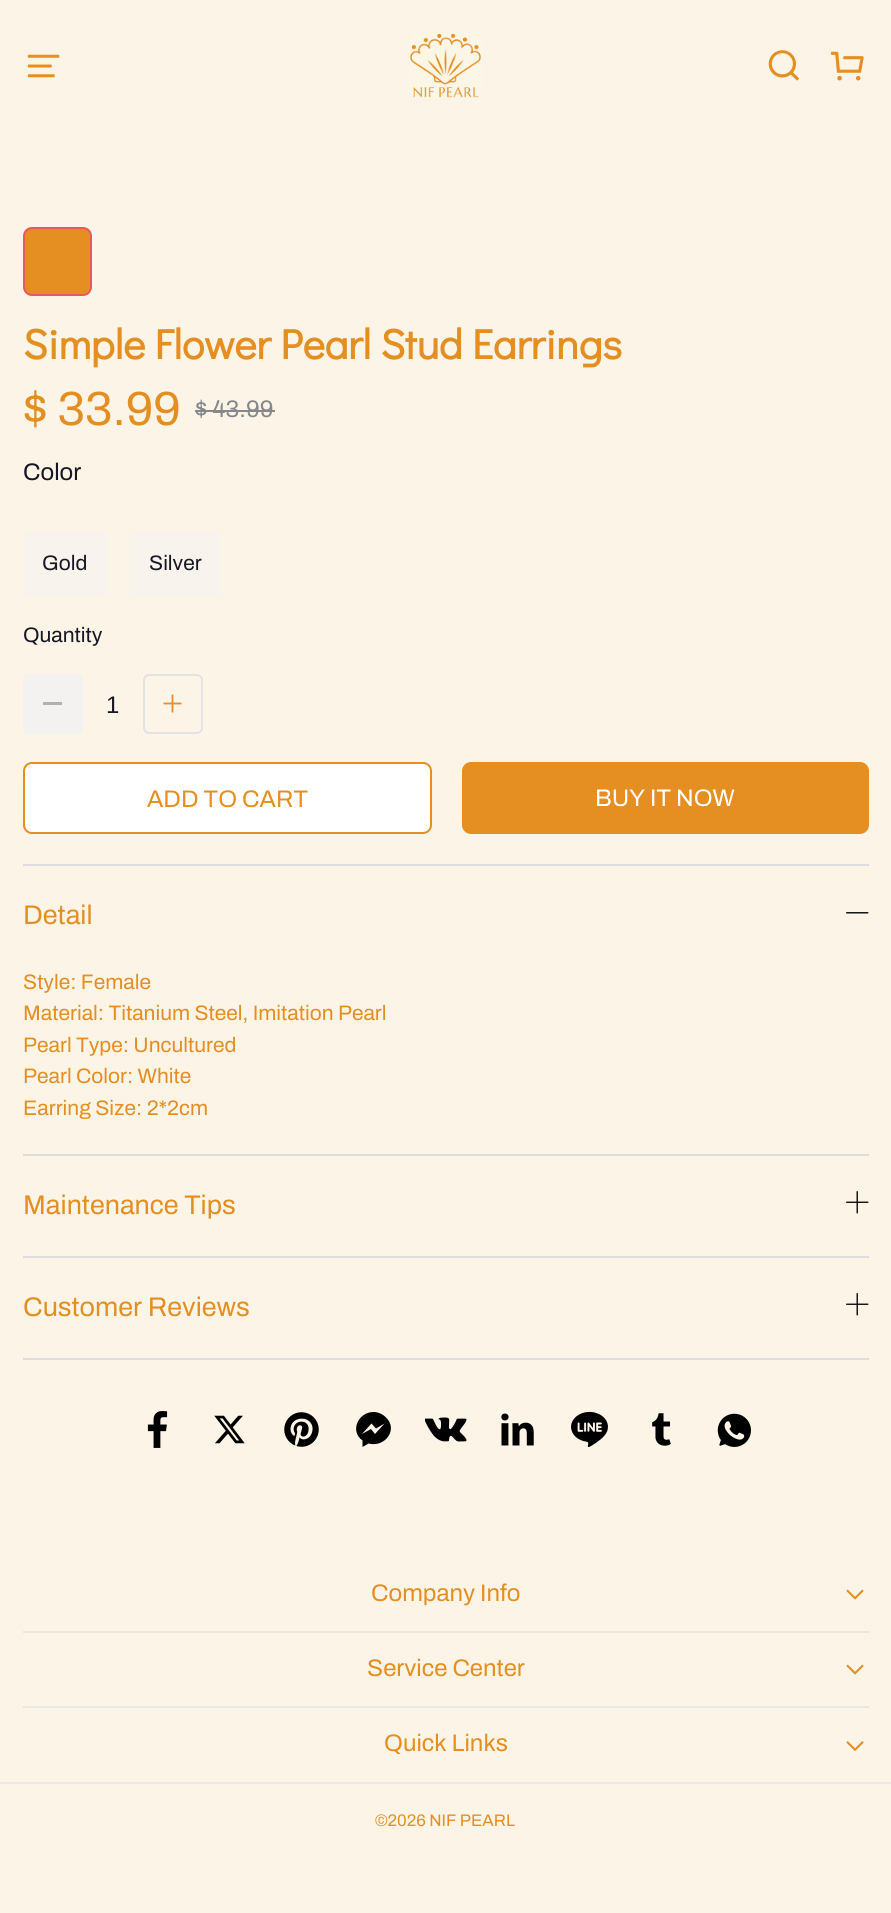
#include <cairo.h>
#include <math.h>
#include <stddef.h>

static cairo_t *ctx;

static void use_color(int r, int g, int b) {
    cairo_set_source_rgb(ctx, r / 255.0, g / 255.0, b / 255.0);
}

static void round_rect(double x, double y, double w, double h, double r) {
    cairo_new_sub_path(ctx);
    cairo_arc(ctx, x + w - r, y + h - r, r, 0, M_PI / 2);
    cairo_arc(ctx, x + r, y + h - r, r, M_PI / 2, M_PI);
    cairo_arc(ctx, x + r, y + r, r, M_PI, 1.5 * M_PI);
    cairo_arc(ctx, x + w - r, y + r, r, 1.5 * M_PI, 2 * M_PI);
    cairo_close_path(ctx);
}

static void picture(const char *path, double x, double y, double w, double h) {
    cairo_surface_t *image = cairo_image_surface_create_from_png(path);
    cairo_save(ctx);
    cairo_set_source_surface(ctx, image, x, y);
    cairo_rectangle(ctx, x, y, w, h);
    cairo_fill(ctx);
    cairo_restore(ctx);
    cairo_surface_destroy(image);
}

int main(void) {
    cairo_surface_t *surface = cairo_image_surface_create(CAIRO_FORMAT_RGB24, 891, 1913);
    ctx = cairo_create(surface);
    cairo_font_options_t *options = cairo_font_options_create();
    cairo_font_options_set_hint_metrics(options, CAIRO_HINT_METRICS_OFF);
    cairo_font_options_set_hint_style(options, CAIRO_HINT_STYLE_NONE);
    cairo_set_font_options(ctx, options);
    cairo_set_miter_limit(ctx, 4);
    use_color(252, 244, 231);
    cairo_paint(ctx);
    picture("img1.png", 27, 54, 33, 24);
    picture("img2.png", 409, 33, 73, 65);
    picture("img3.png", 768, 50, 31, 31);
    picture("img4.png", 831, 51, 33, 30);
    use_color(229, 142, 33);
    round_rect(24, 228, 67, 67, 8);
    cairo_fill_preserve(ctx);
    use_color(235, 86, 95);
    cairo_stroke(ctx);
    cairo_select_font_face(ctx, "Didact Gothic", CAIRO_FONT_SLANT_NORMAL, CAIRO_FONT_WEIGHT_BOLD);
    cairo_set_font_size(ctx, 42);
    use_color(229, 142, 33);
    cairo_move_to(ctx, 23, 359);
    cairo_show_text(ctx, "Simple Flower Pearl Stud Earrings");
    cairo_select_font_face(ctx, "Archivo SemiBold", CAIRO_FONT_SLANT_NORMAL, CAIRO_FONT_WEIGHT_NORMAL);
    cairo_set_font_size(ctx, 48);
    cairo_move_to(ctx, 23, 425);
    cairo_show_text(ctx, "$ 33.99");
    cairo_set_font_size(ctx, 24);
    use_color(134, 135, 139);
    cairo_move_to(ctx, 195, 417);
    cairo_show_text(ctx, "$ 43.99");
    cairo_rectangle(ctx, 195, 410, 80, 2);
    cairo_fill(ctx);
    use_color(22, 23, 34);
    cairo_move_to(ctx, 23, 480);
    cairo_show_text(ctx, "Color");
    use_color(248, 243, 236);
    round_rect(23, 531, 84, 66, 6);
    cairo_fill(ctx);
    cairo_set_font_size(ctx, 21);
    use_color(22, 23, 34);
    cairo_move_to(ctx, 42, 570);
    cairo_show_text(ctx, "Gold");
    use_color(248, 243, 236);
    round_rect(129, 531, 92, 66, 6);
    cairo_fill(ctx);
    use_color(22, 23, 34);
    cairo_move_to(ctx, 149, 570);
    cairo_show_text(ctx, "Silver");
    cairo_move_to(ctx, 23, 642);
    cairo_show_text(ctx, "Quantity");
    use_color(244, 242, 241);
    round_rect(23, 674, 60, 60, 6);
    cairo_fill(ctx);
    use_color(177, 176, 179);
    cairo_rectangle(ctx, 43, 702, 19, 3);
    cairo_fill(ctx);
    cairo_select_font_face(ctx, "Liberation Sans", CAIRO_FONT_SLANT_NORMAL, CAIRO_FONT_WEIGHT_NORMAL);
    cairo_set_font_size(ctx, 24);
    use_color(22, 23, 34);
    cairo_move_to(ctx, 106, 713);
    cairo_show_text(ctx, "1");
    round_rect(144, 675, 58, 58, 5);
    use_color(227, 227, 228);
    cairo_stroke(ctx);
    picture("img5.png", 163, 694, 19, 19);
    use_color(255, 255, 255);
    round_rect(24, 763, 407, 70, 8);
    cairo_fill_preserve(ctx);
    use_color(229, 142, 33);
    cairo_stroke(ctx);
    cairo_select_font_face(ctx, "Archivo SemiBold", CAIRO_FONT_SLANT_NORMAL, CAIRO_FONT_WEIGHT_NORMAL);
    cairo_move_to(ctx, 147, 807);
    cairo_show_text(ctx, "ADD TO CART");
    round_rect(462, 762, 407, 72, 9);
    cairo_fill(ctx);
    use_color(255, 255, 255);
    cairo_move_to(ctx, 595, 806);
    cairo_show_text(ctx, "BUY IT NOW");
    use_color(221, 221, 221);
    cairo_rectangle(ctx, 23, 864, 846, 2);
    cairo_fill(ctx);
    cairo_rectangle(ctx, 23, 1154, 846, 2);
    cairo_fill(ctx);
    cairo_set_font_size(ctx, 27);
    use_color(229, 142, 33);
    cairo_move_to(ctx, 23, 924);
    cairo_show_text(ctx, "Detail");
    picture("img6.png", 846, 912, 23, 2);
    cairo_set_font_size(ctx, 21);
    cairo_move_to(ctx, 23, 989);
    cairo_show_text(ctx, "Style: Female");
    cairo_move_to(ctx, 23, 1020);
    cairo_show_text(ctx, "Material: Titanium Steel, Imitation Pearl");
    cairo_move_to(ctx, 23, 1052);
    cairo_show_text(ctx, "Pearl Type: Uncultured");
    cairo_move_to(ctx, 23, 1083);
    cairo_show_text(ctx, "Pearl Color: White");
    cairo_move_to(ctx, 23, 1115);
    cairo_show_text(ctx, "Earring Size: 2*2cm");
    use_color(221, 221, 221);
    cairo_rectangle(ctx, 23, 1256, 846, 2);
    cairo_fill(ctx);
    cairo_set_font_size(ctx, 27);
    use_color(229, 142, 33);
    cairo_move_to(ctx, 23, 1214);
    cairo_show_text(ctx, "Maintenance Tips");
    picture("img7.png", 846, 1191, 23, 23);
    use_color(221, 221, 221);
    cairo_rectangle(ctx, 23, 1358, 846, 2);
    cairo_fill(ctx);
    use_color(229, 142, 33);
    cairo_move_to(ctx, 23, 1316);
    cairo_show_text(ctx, "Customer Reviews");
    picture("img7.png", 846, 1293, 23, 23);
    picture("img8.png", 147, 1411, 21, 37);
    picture("img9.png", 214, 1415, 31, 29);
    picture("img10.png", 284, 1412, 35, 35);
    use_color(0, 0, 0);
    cairo_new_path(ctx);
    cairo_move_to(ctx, 373.5, 1412);
    cairo_curve_to(ctx, 358, 1412, 349.5, 1431.5, 362.5, 1440.5);
    cairo_line_to(ctx, 362.5, 1447);
    cairo_line_to(ctx, 368.5, 1443.5);
    cairo_curve_to(ctx, 385, 1448, 399, 1429, 385.5, 1417);
    cairo_curve_to(ctx, 382.5, 1414, 378, 1412, 373.5, 1412);
    cairo_close_path(ctx);
    cairo_move_to(ctx, 375, 1434);
    cairo_line_to(ctx, 371, 1429);
    cairo_line_to(ctx, 362, 1434);
    cairo_line_to(ctx, 371.5, 1423.5);
    cairo_line_to(ctx, 376, 1428.5);
    cairo_line_to(ctx, 384.5, 1423.5);
    cairo_close_path(ctx);
    cairo_fill(ctx);
    picture("img11.png", 425, 1417, 42, 25);
    picture("img12.png", 501, 1413, 33, 33);
    picture("img13.png", 571, 1411, 37, 36);
    picture("img14.png", 652, 1413, 19, 33);
    picture("img15.png", 717, 1413, 34, 34);
    use_color(232, 232, 225);
    cairo_rectangle(ctx, 23, 1631, 846, 2);
    cairo_fill(ctx);
    cairo_set_font_size(ctx, 24);
    use_color(229, 142, 33);
    cairo_move_to(ctx, 371, 1601);
    cairo_show_text(ctx, "Company Info");
    picture("img16.png", 846, 1589, 18, 11);
    use_color(232, 232, 225);
    cairo_rectangle(ctx, 23, 1706, 846, 2);
    cairo_fill(ctx);
    use_color(229, 142, 33);
    cairo_move_to(ctx, 367, 1676);
    cairo_show_text(ctx, "Service Center");
    picture("img16.png", 846, 1664, 18, 11);
    cairo_move_to(ctx, 384, 1751);
    cairo_show_text(ctx, "Quick Links");
    picture("img17.png", 846, 1741, 18, 10);
    use_color(236, 233, 229);
    cairo_rectangle(ctx, 0, 1782, 891, 2);
    cairo_fill(ctx);
    cairo_set_font_size(ctx, 16.75);
    use_color(229, 142, 33);
    cairo_move_to(ctx, 375, 1826);
    cairo_show_text(ctx, "©2026 NIF PEARL");
    cairo_surface_write_to_png(surface, "result.png");
    cairo_font_options_destroy(options);
    cairo_destroy(ctx);
    cairo_surface_destroy(surface);
    return 0;
}
